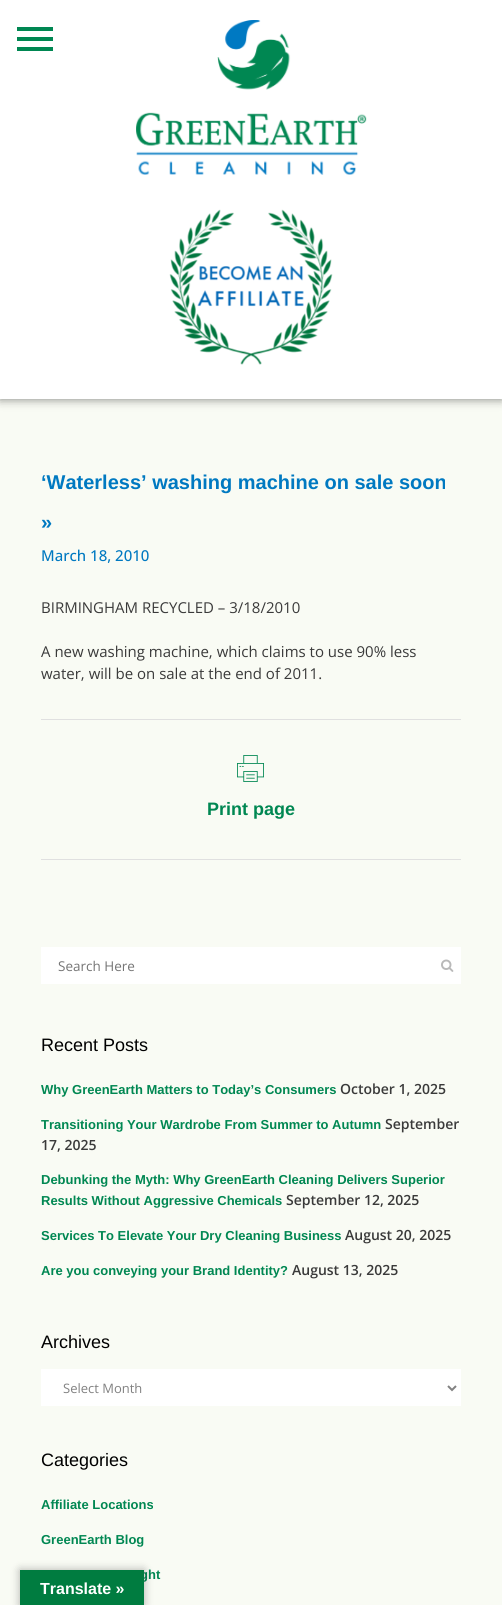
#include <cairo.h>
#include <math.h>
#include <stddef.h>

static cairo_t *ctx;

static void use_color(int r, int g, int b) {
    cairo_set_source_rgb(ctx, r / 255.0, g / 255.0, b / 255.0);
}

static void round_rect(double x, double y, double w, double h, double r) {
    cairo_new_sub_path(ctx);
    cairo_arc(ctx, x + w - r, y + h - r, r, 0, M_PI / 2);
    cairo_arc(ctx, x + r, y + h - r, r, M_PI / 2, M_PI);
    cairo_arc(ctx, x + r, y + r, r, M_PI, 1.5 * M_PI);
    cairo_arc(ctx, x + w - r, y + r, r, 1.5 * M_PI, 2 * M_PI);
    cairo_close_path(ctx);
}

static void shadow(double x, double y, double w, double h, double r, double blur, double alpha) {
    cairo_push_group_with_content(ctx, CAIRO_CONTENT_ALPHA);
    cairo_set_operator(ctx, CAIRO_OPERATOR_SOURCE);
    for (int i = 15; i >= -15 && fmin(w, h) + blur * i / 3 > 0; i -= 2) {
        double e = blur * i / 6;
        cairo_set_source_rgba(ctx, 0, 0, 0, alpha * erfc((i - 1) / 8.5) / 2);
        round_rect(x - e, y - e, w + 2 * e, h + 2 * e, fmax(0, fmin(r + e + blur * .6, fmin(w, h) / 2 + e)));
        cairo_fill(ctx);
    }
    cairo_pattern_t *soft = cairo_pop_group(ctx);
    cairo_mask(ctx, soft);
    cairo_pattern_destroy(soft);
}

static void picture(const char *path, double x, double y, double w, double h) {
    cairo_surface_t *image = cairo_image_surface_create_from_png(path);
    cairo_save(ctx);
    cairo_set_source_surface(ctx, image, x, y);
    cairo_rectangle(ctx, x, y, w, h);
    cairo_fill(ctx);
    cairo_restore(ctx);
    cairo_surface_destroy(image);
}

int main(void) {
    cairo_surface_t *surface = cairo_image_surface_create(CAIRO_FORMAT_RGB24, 502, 1605);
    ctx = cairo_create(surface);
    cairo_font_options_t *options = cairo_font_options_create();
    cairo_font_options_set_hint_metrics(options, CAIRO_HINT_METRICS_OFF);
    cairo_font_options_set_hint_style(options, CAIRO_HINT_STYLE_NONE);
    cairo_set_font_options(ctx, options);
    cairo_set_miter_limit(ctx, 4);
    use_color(249, 251, 244);
    cairo_paint(ctx);
    use_color(0, 0, 0);
    shadow(0, 0, 502, 399, 0, 5, 0.5);
    use_color(255, 255, 255);
    cairo_rectangle(ctx, 0, 0, 502, 399);
    cairo_fill(ctx);
    use_color(0, 135, 82);
    cairo_rectangle(ctx, 17, 27, 36, 4);
    cairo_fill(ctx);
    cairo_rectangle(ctx, 17, 37, 36, 4);
    cairo_fill(ctx);
    cairo_rectangle(ctx, 17, 47, 36, 4);
    cairo_fill(ctx);
    picture("img1.png", 136, 20, 231, 155);
    picture("img2.png", 169, 209, 164, 156);
    cairo_select_font_face(ctx, "Liberation Sans", CAIRO_FONT_SLANT_NORMAL, CAIRO_FONT_WEIGHT_BOLD);
    cairo_set_font_size(ctx, 20);
    use_color(0, 121, 193);
    cairo_move_to(ctx, 41, 489);
    cairo_show_text(ctx, "‘Waterless’ washing machine on sale soon");
    cairo_move_to(ctx, 41, 529);
    cairo_show_text(ctx, "»");
    cairo_select_font_face(ctx, "Open Sans Medium", CAIRO_FONT_SLANT_NORMAL, CAIRO_FONT_WEIGHT_NORMAL);
    cairo_set_font_size(ctx, 15);
    cairo_move_to(ctx, 41, 561);
    cairo_show_text(ctx, "March 18, 2010");
    cairo_select_font_face(ctx, "Open Sans", CAIRO_FONT_SLANT_NORMAL, CAIRO_FONT_WEIGHT_NORMAL);
    use_color(58, 58, 58);
    cairo_move_to(ctx, 41, 613);
    cairo_show_text(ctx, "BIRMINGHAM RECYCLED – 3/18/2010");
    cairo_move_to(ctx, 41, 657);
    cairo_show_text(ctx, "A new washing machine, which claims to use 90% less");
    cairo_move_to(ctx, 41, 679);
    cairo_show_text(ctx, "water, will be on sale at the end of 2011.");
    use_color(224, 224, 224);
    cairo_rectangle(ctx, 41, 719, 420, 1);
    cairo_fill(ctx);
    cairo_rectangle(ctx, 41, 859, 420, 1);
    cairo_fill(ctx);
    picture("img3.png", 237, 755, 27, 27);
    cairo_select_font_face(ctx, "Liberation Sans", CAIRO_FONT_SLANT_NORMAL, CAIRO_FONT_WEIGHT_BOLD);
    cairo_set_font_size(ctx, 18);
    use_color(0, 135, 82);
    cairo_move_to(ctx, 207, 815);
    cairo_show_text(ctx, "Print page");
    use_color(255, 255, 255);
    cairo_rectangle(ctx, 41, 947, 420, 37);
    cairo_fill(ctx);
    cairo_select_font_face(ctx, "Open Sans", CAIRO_FONT_SLANT_NORMAL, CAIRO_FONT_WEIGHT_NORMAL);
    cairo_set_font_size(ctx, 13.5);
    use_color(117, 117, 117);
    cairo_move_to(ctx, 58, 971);
    cairo_show_text(ctx, "Search Here");
    picture("img4.png", 441, 959, 13, 13);
    cairo_select_font_face(ctx, "Liberation Sans", CAIRO_FONT_SLANT_NORMAL, CAIRO_FONT_WEIGHT_NORMAL);
    cairo_set_font_size(ctx, 18);
    use_color(0, 0, 0);
    cairo_move_to(ctx, 41, 1051);
    cairo_show_text(ctx, "Recent Posts");
    cairo_select_font_face(ctx, "Liberation Sans", CAIRO_FONT_SLANT_NORMAL, CAIRO_FONT_WEIGHT_BOLD);
    cairo_set_font_size(ctx, 13);
    use_color(0, 135, 82);
    cairo_move_to(ctx, 41, 1094);
    cairo_show_text(ctx, "Why GreenEarth Matters to Today’s Consumers");
    cairo_select_font_face(ctx, "Open Sans SemiBold", CAIRO_FONT_SLANT_NORMAL, CAIRO_FONT_WEIGHT_NORMAL);
    cairo_set_font_size(ctx, 14);
    use_color(58, 58, 58);
    cairo_move_to(ctx, 340, 1094);
    cairo_show_text(ctx, "October 1, 2025");
    cairo_select_font_face(ctx, "Liberation Sans", CAIRO_FONT_SLANT_NORMAL, CAIRO_FONT_WEIGHT_BOLD);
    cairo_set_font_size(ctx, 13);
    use_color(0, 135, 82);
    cairo_move_to(ctx, 41, 1129);
    cairo_show_text(ctx, "Transitioning Your Wardrobe From Summer to Autumn");
    cairo_select_font_face(ctx, "Open Sans SemiBold", CAIRO_FONT_SLANT_NORMAL, CAIRO_FONT_WEIGHT_NORMAL);
    cairo_set_font_size(ctx, 14);
    use_color(58, 58, 58);
    cairo_move_to(ctx, 385, 1129);
    cairo_show_text(ctx, "September");
    cairo_move_to(ctx, 41, 1150);
    cairo_show_text(ctx, "17, 2025");
    cairo_select_font_face(ctx, "Liberation Sans", CAIRO_FONT_SLANT_NORMAL, CAIRO_FONT_WEIGHT_BOLD);
    cairo_set_font_size(ctx, 13);
    use_color(0, 135, 82);
    cairo_move_to(ctx, 41, 1184);
    cairo_show_text(ctx, "Debunking the Myth: Why GreenEarth Cleaning Delivers Superior");
    cairo_move_to(ctx, 41, 1205);
    cairo_show_text(ctx, "Results Without Aggressive Chemicals");
    cairo_select_font_face(ctx, "Open Sans SemiBold", CAIRO_FONT_SLANT_NORMAL, CAIRO_FONT_WEIGHT_NORMAL);
    cairo_set_font_size(ctx, 14);
    use_color(58, 58, 58);
    cairo_move_to(ctx, 286, 1205);
    cairo_show_text(ctx, "September 12, 2025");
    cairo_select_font_face(ctx, "Liberation Sans", CAIRO_FONT_SLANT_NORMAL, CAIRO_FONT_WEIGHT_BOLD);
    cairo_set_font_size(ctx, 13);
    use_color(0, 135, 82);
    cairo_move_to(ctx, 41, 1240);
    cairo_show_text(ctx, "Services To Elevate Your Dry Cleaning Business");
    cairo_select_font_face(ctx, "Open Sans SemiBold", CAIRO_FONT_SLANT_NORMAL, CAIRO_FONT_WEIGHT_NORMAL);
    cairo_set_font_size(ctx, 14);
    use_color(58, 58, 58);
    cairo_move_to(ctx, 345, 1240);
    cairo_show_text(ctx, "August 20, 2025");
    cairo_select_font_face(ctx, "Liberation Sans", CAIRO_FONT_SLANT_NORMAL, CAIRO_FONT_WEIGHT_BOLD);
    cairo_set_font_size(ctx, 13);
    use_color(0, 135, 82);
    cairo_move_to(ctx, 41, 1275);
    cairo_show_text(ctx, "Are you conveying your Brand Identity?");
    cairo_select_font_face(ctx, "Open Sans SemiBold", CAIRO_FONT_SLANT_NORMAL, CAIRO_FONT_WEIGHT_NORMAL);
    cairo_set_font_size(ctx, 14);
    use_color(58, 58, 58);
    cairo_move_to(ctx, 292, 1275);
    cairo_show_text(ctx, "August 13, 2025");
    cairo_select_font_face(ctx, "Liberation Sans", CAIRO_FONT_SLANT_NORMAL, CAIRO_FONT_WEIGHT_NORMAL);
    cairo_set_font_size(ctx, 18);
    use_color(0, 0, 0);
    cairo_move_to(ctx, 41, 1348);
    cairo_show_text(ctx, "Archives");
    use_color(255, 255, 255);
    cairo_rectangle(ctx, 41, 1369, 420, 37);
    cairo_fill(ctx);
    cairo_new_path(ctx);
    cairo_move_to(ctx, 448, 1386);
    cairo_line_to(ctx, 452, 1390);
    cairo_line_to(ctx, 456, 1386);
    use_color(129, 129, 129);
    cairo_stroke(ctx);
    cairo_select_font_face(ctx, "Open Sans", CAIRO_FONT_SLANT_NORMAL, CAIRO_FONT_WEIGHT_NORMAL);
    cairo_set_font_size(ctx, 13);
    cairo_move_to(ctx, 63, 1393);
    cairo_show_text(ctx, "Select Month");
    cairo_select_font_face(ctx, "Liberation Sans", CAIRO_FONT_SLANT_NORMAL, CAIRO_FONT_WEIGHT_NORMAL);
    cairo_set_font_size(ctx, 18);
    use_color(0, 0, 0);
    cairo_move_to(ctx, 41, 1466);
    cairo_show_text(ctx, "Categories");
    cairo_select_font_face(ctx, "Liberation Sans", CAIRO_FONT_SLANT_NORMAL, CAIRO_FONT_WEIGHT_BOLD);
    cairo_set_font_size(ctx, 13);
    use_color(0, 135, 82);
    cairo_move_to(ctx, 41, 1509);
    cairo_show_text(ctx, "Affiliate Locations");
    cairo_move_to(ctx, 41, 1544);
    cairo_show_text(ctx, "GreenEarth Blog");
    cairo_move_to(ctx, 140, 1579);
    cairo_show_text(ctx, "ght");
    use_color(0, 0, 0);
    shadow(20, 1570, 124, 35, 0, 4.5, 0.3);
    use_color(0, 124, 64);
    cairo_rectangle(ctx, 20, 1570, 124, 35);
    cairo_fill(ctx);
    cairo_set_font_size(ctx, 16);
    use_color(255, 255, 255);
    cairo_move_to(ctx, 40, 1594);
    cairo_show_text(ctx, "Translate »");
    cairo_surface_write_to_png(surface, "result.png");
    cairo_font_options_destroy(options);
    cairo_destroy(ctx);
    cairo_surface_destroy(surface);
    return 0;
}
